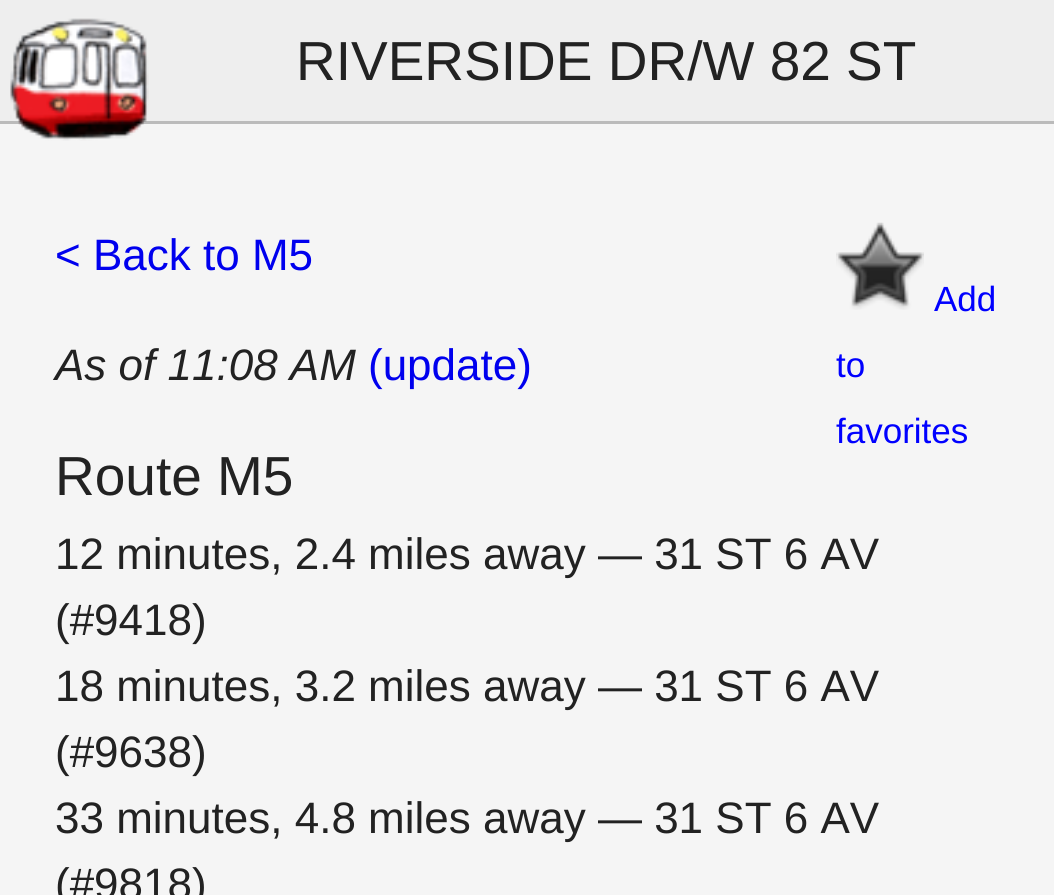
#include <cairo.h>
#include <math.h>
#include <stddef.h>

static cairo_t *ctx;

static void use_color(int r, int g, int b) {
    cairo_set_source_rgb(ctx, r / 255.0, g / 255.0, b / 255.0);
}

static void picture(const char *path, double x, double y, double w, double h) {
    cairo_surface_t *image = cairo_image_surface_create_from_png(path);
    cairo_save(ctx);
    cairo_set_source_surface(ctx, image, x, y);
    cairo_rectangle(ctx, x, y, w, h);
    cairo_fill(ctx);
    cairo_restore(ctx);
    cairo_surface_destroy(image);
}

int main(void) {
    cairo_surface_t *surface = cairo_image_surface_create(CAIRO_FORMAT_RGB24, 1054, 895);
    ctx = cairo_create(surface);
    cairo_font_options_t *options = cairo_font_options_create();
    cairo_font_options_set_hint_metrics(options, CAIRO_HINT_METRICS_OFF);
    cairo_font_options_set_hint_style(options, CAIRO_HINT_STYLE_NONE);
    cairo_set_font_options(ctx, options);
    cairo_set_miter_limit(ctx, 4);
    use_color(245, 245, 245);
    cairo_paint(ctx);
    use_color(238, 238, 238);
    cairo_rectangle(ctx, 0, 0, 1054, 121);
    cairo_fill(ctx);
    use_color(187, 187, 187);
    cairo_rectangle(ctx, 0, 121, 1054, 3);
    cairo_fill(ctx);
    picture("img1.png", 10, 18, 139, 123);
    cairo_select_font_face(ctx, "Liberation Sans", CAIRO_FONT_SLANT_NORMAL, CAIRO_FONT_WEIGHT_NORMAL);
    cairo_set_font_size(ctx, 55);
    use_color(34, 34, 34);
    cairo_move_to(ctx, 296, 80);
    cairo_show_text(ctx, "RIVERSIDE DR/W 82 ST");
    cairo_set_font_size(ctx, 44);
    use_color(0, 0, 238);
    cairo_move_to(ctx, 55, 270);
    cairo_show_text(ctx, "< Back to M5");
    cairo_select_font_face(ctx, "Liberation Sans", CAIRO_FONT_SLANT_ITALIC, CAIRO_FONT_WEIGHT_NORMAL);
    use_color(34, 34, 34);
    cairo_move_to(ctx, 55, 380);
    cairo_show_text(ctx, "As of 11:08 AM");
    cairo_select_font_face(ctx, "Liberation Sans", CAIRO_FONT_SLANT_NORMAL, CAIRO_FONT_WEIGHT_NORMAL);
    use_color(0, 0, 238);
    cairo_move_to(ctx, 368, 380);
    cairo_show_text(ctx, "(update)");
    picture("img2.png", 836, 222, 88, 88);
    cairo_set_font_size(ctx, 35);
    use_color(0, 0, 255);
    cairo_move_to(ctx, 934, 311);
    cairo_show_text(ctx, "Add");
    cairo_move_to(ctx, 836, 377);
    cairo_show_text(ctx, "to");
    cairo_move_to(ctx, 836, 443);
    cairo_show_text(ctx, "favorites");
    cairo_set_font_size(ctx, 55);
    use_color(34, 34, 34);
    cairo_move_to(ctx, 55, 495);
    cairo_show_text(ctx, "Route M5");
    cairo_set_font_size(ctx, 44);
    cairo_move_to(ctx, 55, 569);
    cairo_show_text(ctx, "12 minutes, 2.4 miles away — 31 ST 6 AV");
    cairo_move_to(ctx, 55, 635);
    cairo_show_text(ctx, "(#9418)");
    cairo_move_to(ctx, 55, 701);
    cairo_show_text(ctx, "18 minutes, 3.2 miles away — 31 ST 6 AV");
    cairo_move_to(ctx, 55, 767);
    cairo_show_text(ctx, "(#9638)");
    cairo_move_to(ctx, 55, 833);
    cairo_show_text(ctx, "33 minutes, 4.8 miles away — 31 ST 6 AV");
    cairo_move_to(ctx, 55, 899);
    cairo_show_text(ctx, "(#9818)");
    cairo_surface_write_to_png(surface, "result.png");
    cairo_font_options_destroy(options);
    cairo_destroy(ctx);
    cairo_surface_destroy(surface);
    return 0;
}
